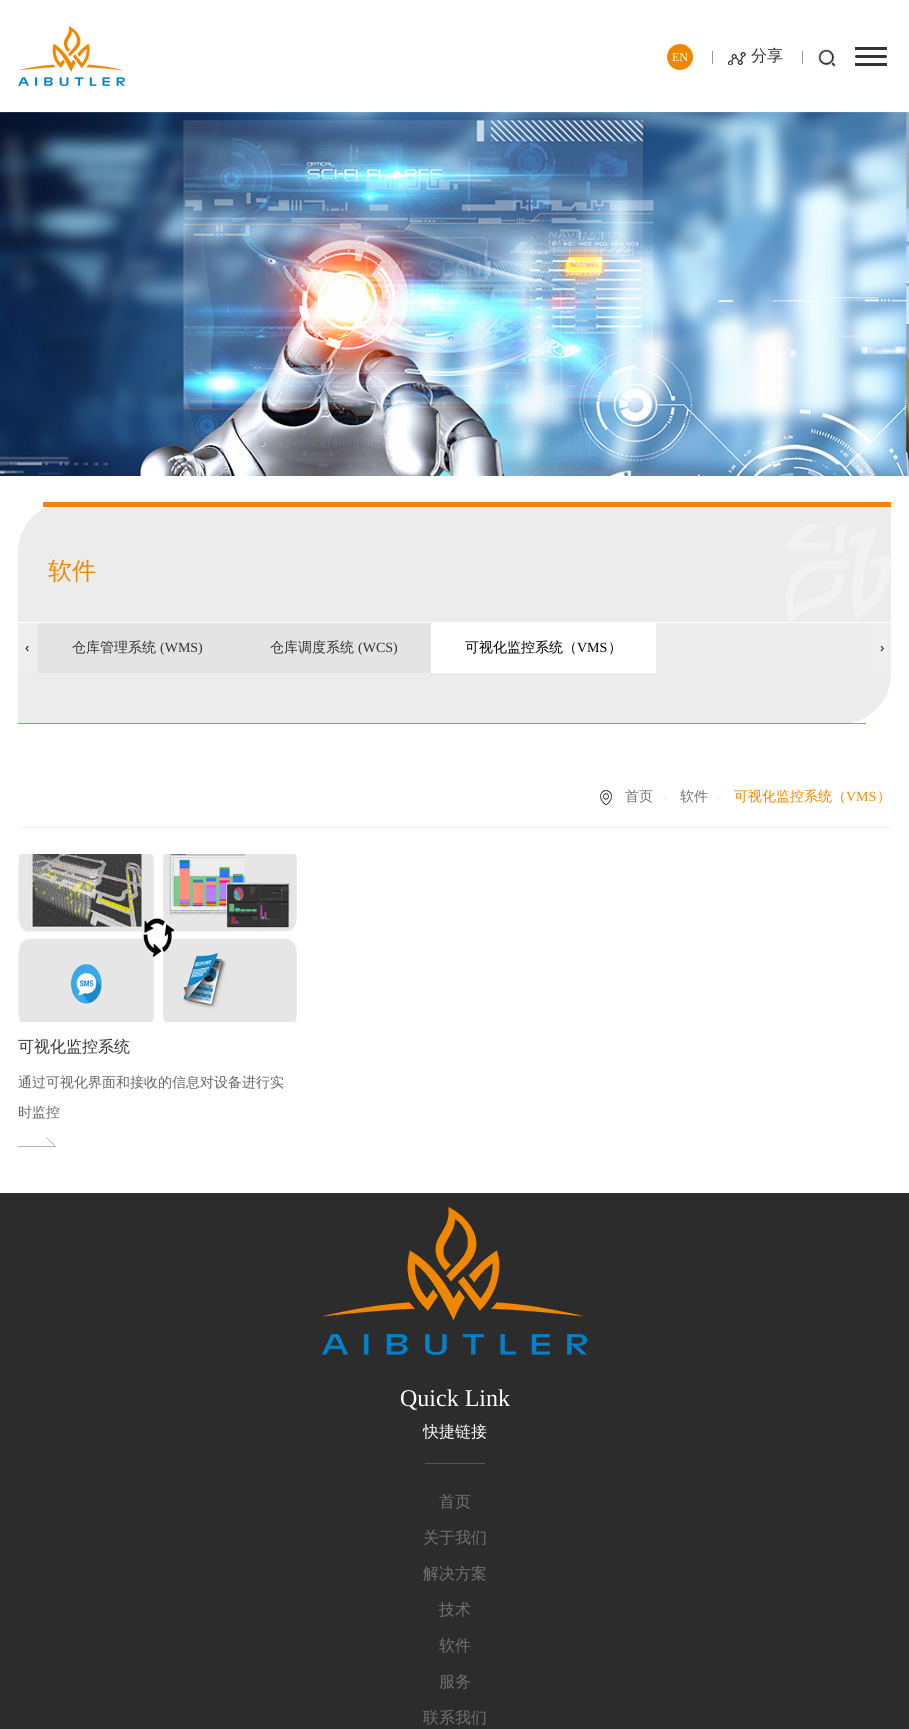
#include <cairo.h>
#include <math.h>
#include <stddef.h>

static cairo_t *ctx;

static void use_color(int r, int g, int b) {
    cairo_set_source_rgb(ctx, r / 255.0, g / 255.0, b / 255.0);
}

static void round_rect(double x, double y, double w, double h, double r) {
    cairo_new_sub_path(ctx);
    cairo_arc(ctx, x + w - r, y + h - r, r, 0, M_PI / 2);
    cairo_arc(ctx, x + r, y + h - r, r, M_PI / 2, M_PI);
    cairo_arc(ctx, x + r, y + r, r, M_PI, 1.5 * M_PI);
    cairo_arc(ctx, x + w - r, y + r, r, 1.5 * M_PI, 2 * M_PI);
    cairo_close_path(ctx);
}

static void picture(const char *path, double x, double y, double w, double h) {
    cairo_surface_t *image = cairo_image_surface_create_from_png(path);
    cairo_save(ctx);
    cairo_set_source_surface(ctx, image, x, y);
    cairo_rectangle(ctx, x, y, w, h);
    cairo_fill(ctx);
    cairo_restore(ctx);
    cairo_surface_destroy(image);
}

int main(void) {
    cairo_surface_t *surface = cairo_image_surface_create(CAIRO_FORMAT_RGB24, 909, 1729);
    ctx = cairo_create(surface);
    cairo_font_options_t *options = cairo_font_options_create();
    cairo_font_options_set_hint_metrics(options, CAIRO_HINT_METRICS_OFF);
    cairo_font_options_set_hint_style(options, CAIRO_HINT_STYLE_NONE);
    cairo_set_font_options(ctx, options);
    cairo_set_miter_limit(ctx, 4);
    use_color(255, 255, 255);
    cairo_paint(ctx);
    picture("img1.png", 18, 26, 107, 60);
    use_color(240, 135, 0);
    cairo_arc(ctx, 680, 57, 13, 0, 2 * M_PI);
    cairo_fill(ctx);
    cairo_select_font_face(ctx, "Liberation Serif", CAIRO_FONT_SLANT_NORMAL, CAIRO_FONT_WEIGHT_NORMAL);
    cairo_set_font_size(ctx, 12);
    use_color(255, 255, 255);
    cairo_move_to(ctx, 672, 61);
    cairo_show_text(ctx, "EN");
    use_color(153, 153, 153);
    cairo_rectangle(ctx, 712, 51, 1, 13);
    cairo_fill(ctx);
    picture("img2.png", 728, 52, 18, 13);
    cairo_select_font_face(ctx, "WenQuanYi Zen Hei Medium", CAIRO_FONT_SLANT_NORMAL, CAIRO_FONT_WEIGHT_NORMAL);
    cairo_set_font_size(ctx, 16);
    use_color(51, 51, 51);
    cairo_move_to(ctx, 751, 61);
    cairo_show_text(ctx, "分享");
    use_color(153, 153, 153);
    cairo_rectangle(ctx, 802, 51, 1, 13);
    cairo_fill(ctx);
    picture("img3.png", 818, 49, 18, 18);
    use_color(51, 51, 51);
    round_rect(855, 55, 32, 3, 1.5);
    cairo_fill(ctx);
    cairo_rectangle(ctx, 855, 47, 32, 3);
    cairo_fill(ctx);
    cairo_rectangle(ctx, 855, 63, 32, 3);
    cairo_fill(ctx);
    picture("img4.png", 0, 112, 909, 364);
    cairo_set_source_rgba(ctx, 1, 1, 1, 0.1);
    cairo_rectangle(ctx, 0, 112, 909, 1);
    cairo_fill(ctx);
    use_color(236, 236, 236);
    cairo_new_path(ctx);
    cairo_move_to(ctx, 68, 502);
    cairo_line_to(ctx, 891, 502);
    cairo_line_to(ctx, 891, 674);
    cairo_curve_to(ctx, 891, 701.5, 868.5, 724, 841, 724);
    cairo_line_to(ctx, 18, 724);
    cairo_line_to(ctx, 18, 552);
    cairo_curve_to(ctx, 18, 524.5, 40.5, 502, 68, 502);
    cairo_close_path(ctx);
    cairo_fill(ctx);
    use_color(240, 135, 0);
    cairo_rectangle(ctx, 43, 502, 848, 5);
    cairo_fill(ctx);
    cairo_rectangle(ctx, 18, 723, 848, 1);
    cairo_fill(ctx);
    picture("img5.png", 786, 525, 105, 97);
    cairo_set_font_size(ctx, 24);
    cairo_move_to(ctx, 48, 579);
    cairo_show_text(ctx, "软件");
    use_color(255, 255, 255);
    cairo_rectangle(ctx, 18, 622, 873, 1);
    cairo_fill(ctx);
    use_color(228, 228, 228);
    cairo_rectangle(ctx, 38, 623, 393, 50);
    cairo_fill(ctx);
    cairo_set_font_size(ctx, 14);
    use_color(51, 51, 51);
    cairo_move_to(ctx, 72, 652);
    cairo_show_text(ctx, "仓库管理系统");
    cairo_select_font_face(ctx, "Liberation Serif", CAIRO_FONT_SLANT_NORMAL, CAIRO_FONT_WEIGHT_NORMAL);
    cairo_move_to(ctx, 160, 652);
    cairo_show_text(ctx, "(WMS)");
    cairo_select_font_face(ctx, "WenQuanYi Zen Hei Medium", CAIRO_FONT_SLANT_NORMAL, CAIRO_FONT_WEIGHT_NORMAL);
    cairo_move_to(ctx, 270, 652);
    cairo_show_text(ctx, "仓库调度系统");
    cairo_select_font_face(ctx, "Liberation Serif", CAIRO_FONT_SLANT_NORMAL, CAIRO_FONT_WEIGHT_NORMAL);
    cairo_move_to(ctx, 358, 652);
    cairo_show_text(ctx, "(WCS)");
    use_color(255, 255, 255);
    cairo_rectangle(ctx, 431, 623, 225, 50);
    cairo_fill(ctx);
    cairo_select_font_face(ctx, "WenQuanYi Zen Hei Medium", CAIRO_FONT_SLANT_NORMAL, CAIRO_FONT_WEIGHT_NORMAL);
    use_color(0, 0, 0);
    cairo_move_to(ctx, 465, 652);
    cairo_show_text(ctx, "可视化监控系统（");
    cairo_select_font_face(ctx, "Liberation Serif", CAIRO_FONT_SLANT_NORMAL, CAIRO_FONT_WEIGHT_NORMAL);
    cairo_move_to(ctx, 577, 652);
    cairo_show_text(ctx, "VMS");
    cairo_select_font_face(ctx, "WenQuanYi Zen Hei Medium", CAIRO_FONT_SLANT_NORMAL, CAIRO_FONT_WEIGHT_NORMAL);
    cairo_move_to(ctx, 608, 652);
    cairo_show_text(ctx, "）");
    use_color(239, 239, 239);
    cairo_rectangle(ctx, 18, 623, 18, 50);
    cairo_fill(ctx);
    cairo_select_font_face(ctx, "Liberation Sans", CAIRO_FONT_SLANT_NORMAL, CAIRO_FONT_WEIGHT_NORMAL);
    cairo_set_font_size(ctx, 13);
    use_color(0, 0, 0);
    cairo_move_to(ctx, 25, 652);
    cairo_show_text(ctx, "‹");
    use_color(239, 239, 239);
    cairo_rectangle(ctx, 873, 623, 18, 50);
    cairo_fill(ctx);
    use_color(0, 0, 0);
    cairo_move_to(ctx, 880, 652);
    cairo_show_text(ctx, "›");
    use_color(238, 240, 241);
    cairo_rectangle(ctx, 18, 827, 873, 1);
    cairo_fill(ctx);
    picture("img6.png", 600, 790, 12, 15);
    cairo_select_font_face(ctx, "WenQuanYi Zen Hei Medium", CAIRO_FONT_SLANT_NORMAL, CAIRO_FONT_WEIGHT_NORMAL);
    cairo_set_font_size(ctx, 14);
    use_color(113, 113, 113);
    cairo_move_to(ctx, 625, 801);
    cairo_show_text(ctx, "首页");
    cairo_select_font_face(ctx, "Liberation Serif", CAIRO_FONT_SLANT_NORMAL, CAIRO_FONT_WEIGHT_NORMAL);
    use_color(221, 221, 221);
    cairo_move_to(ctx, 662, 803);
    cairo_show_text(ctx, "·");
    cairo_select_font_face(ctx, "WenQuanYi Zen Hei Medium", CAIRO_FONT_SLANT_NORMAL, CAIRO_FONT_WEIGHT_NORMAL);
    use_color(113, 113, 113);
    cairo_move_to(ctx, 680, 801);
    cairo_show_text(ctx, "软件");
    cairo_select_font_face(ctx, "Liberation Serif", CAIRO_FONT_SLANT_NORMAL, CAIRO_FONT_WEIGHT_NORMAL);
    use_color(221, 221, 221);
    cairo_move_to(ctx, 716, 803);
    cairo_show_text(ctx, "·");
    cairo_select_font_face(ctx, "WenQuanYi Zen Hei Medium", CAIRO_FONT_SLANT_NORMAL, CAIRO_FONT_WEIGHT_NORMAL);
    use_color(240, 135, 0);
    cairo_move_to(ctx, 734, 801);
    cairo_show_text(ctx, "可视化监控系统（");
    cairo_select_font_face(ctx, "Liberation Serif", CAIRO_FONT_SLANT_NORMAL, CAIRO_FONT_WEIGHT_NORMAL);
    cairo_move_to(ctx, 846, 801);
    cairo_show_text(ctx, "VMS");
    cairo_select_font_face(ctx, "WenQuanYi Zen Hei Medium", CAIRO_FONT_SLANT_NORMAL, CAIRO_FONT_WEIGHT_NORMAL);
    cairo_move_to(ctx, 877, 801);
    cairo_show_text(ctx, "）");
    picture("img7.png", 18, 854, 279, 168);
    cairo_set_font_size(ctx, 16);
    use_color(51, 51, 51);
    cairo_move_to(ctx, 18, 1052);
    cairo_show_text(ctx, "可视化监控系统");
    cairo_set_font_size(ctx, 14);
    use_color(102, 102, 102);
    cairo_move_to(ctx, 18, 1087);
    cairo_show_text(ctx, "通过可视化界面和接收的信息对设备进行实");
    cairo_move_to(ctx, 18, 1117);
    cairo_show_text(ctx, "时监控");
    picture("img8.png", 18, 1138, 38, 9);
    picture("img9.png", 0, 1193, 909, 536);
    picture("img10.png", 322, 1207, 265, 148);
    cairo_select_font_face(ctx, "Liberation Serif", CAIRO_FONT_SLANT_NORMAL, CAIRO_FONT_WEIGHT_NORMAL);
    cairo_set_font_size(ctx, 24);
    use_color(255, 255, 255);
    cairo_move_to(ctx, 400, 1406);
    cairo_show_text(ctx, "Quick Link");
    cairo_select_font_face(ctx, "WenQuanYi Zen Hei Medium", CAIRO_FONT_SLANT_NORMAL, CAIRO_FONT_WEIGHT_NORMAL);
    cairo_set_font_size(ctx, 16);
    cairo_move_to(ctx, 423, 1437);
    cairo_show_text(ctx, "快捷链接");
    use_color(86, 86, 86);
    cairo_rectangle(ctx, 425, 1463, 60, 1);
    cairo_fill(ctx);
    use_color(113, 113, 113);
    cairo_move_to(ctx, 439, 1507);
    cairo_show_text(ctx, "首页");
    cairo_move_to(ctx, 423, 1543);
    cairo_show_text(ctx, "关于我们");
    cairo_move_to(ctx, 423, 1579);
    cairo_show_text(ctx, "解决方案");
    cairo_move_to(ctx, 439, 1615);
    cairo_show_text(ctx, "技术");
    cairo_move_to(ctx, 439, 1651);
    cairo_show_text(ctx, "软件");
    cairo_move_to(ctx, 439, 1687);
    cairo_show_text(ctx, "服务");
    cairo_move_to(ctx, 423, 1723);
    cairo_show_text(ctx, "联系我们");
    cairo_surface_write_to_png(surface, "result.png");
    cairo_font_options_destroy(options);
    cairo_destroy(ctx);
    cairo_surface_destroy(surface);
    return 0;
}
